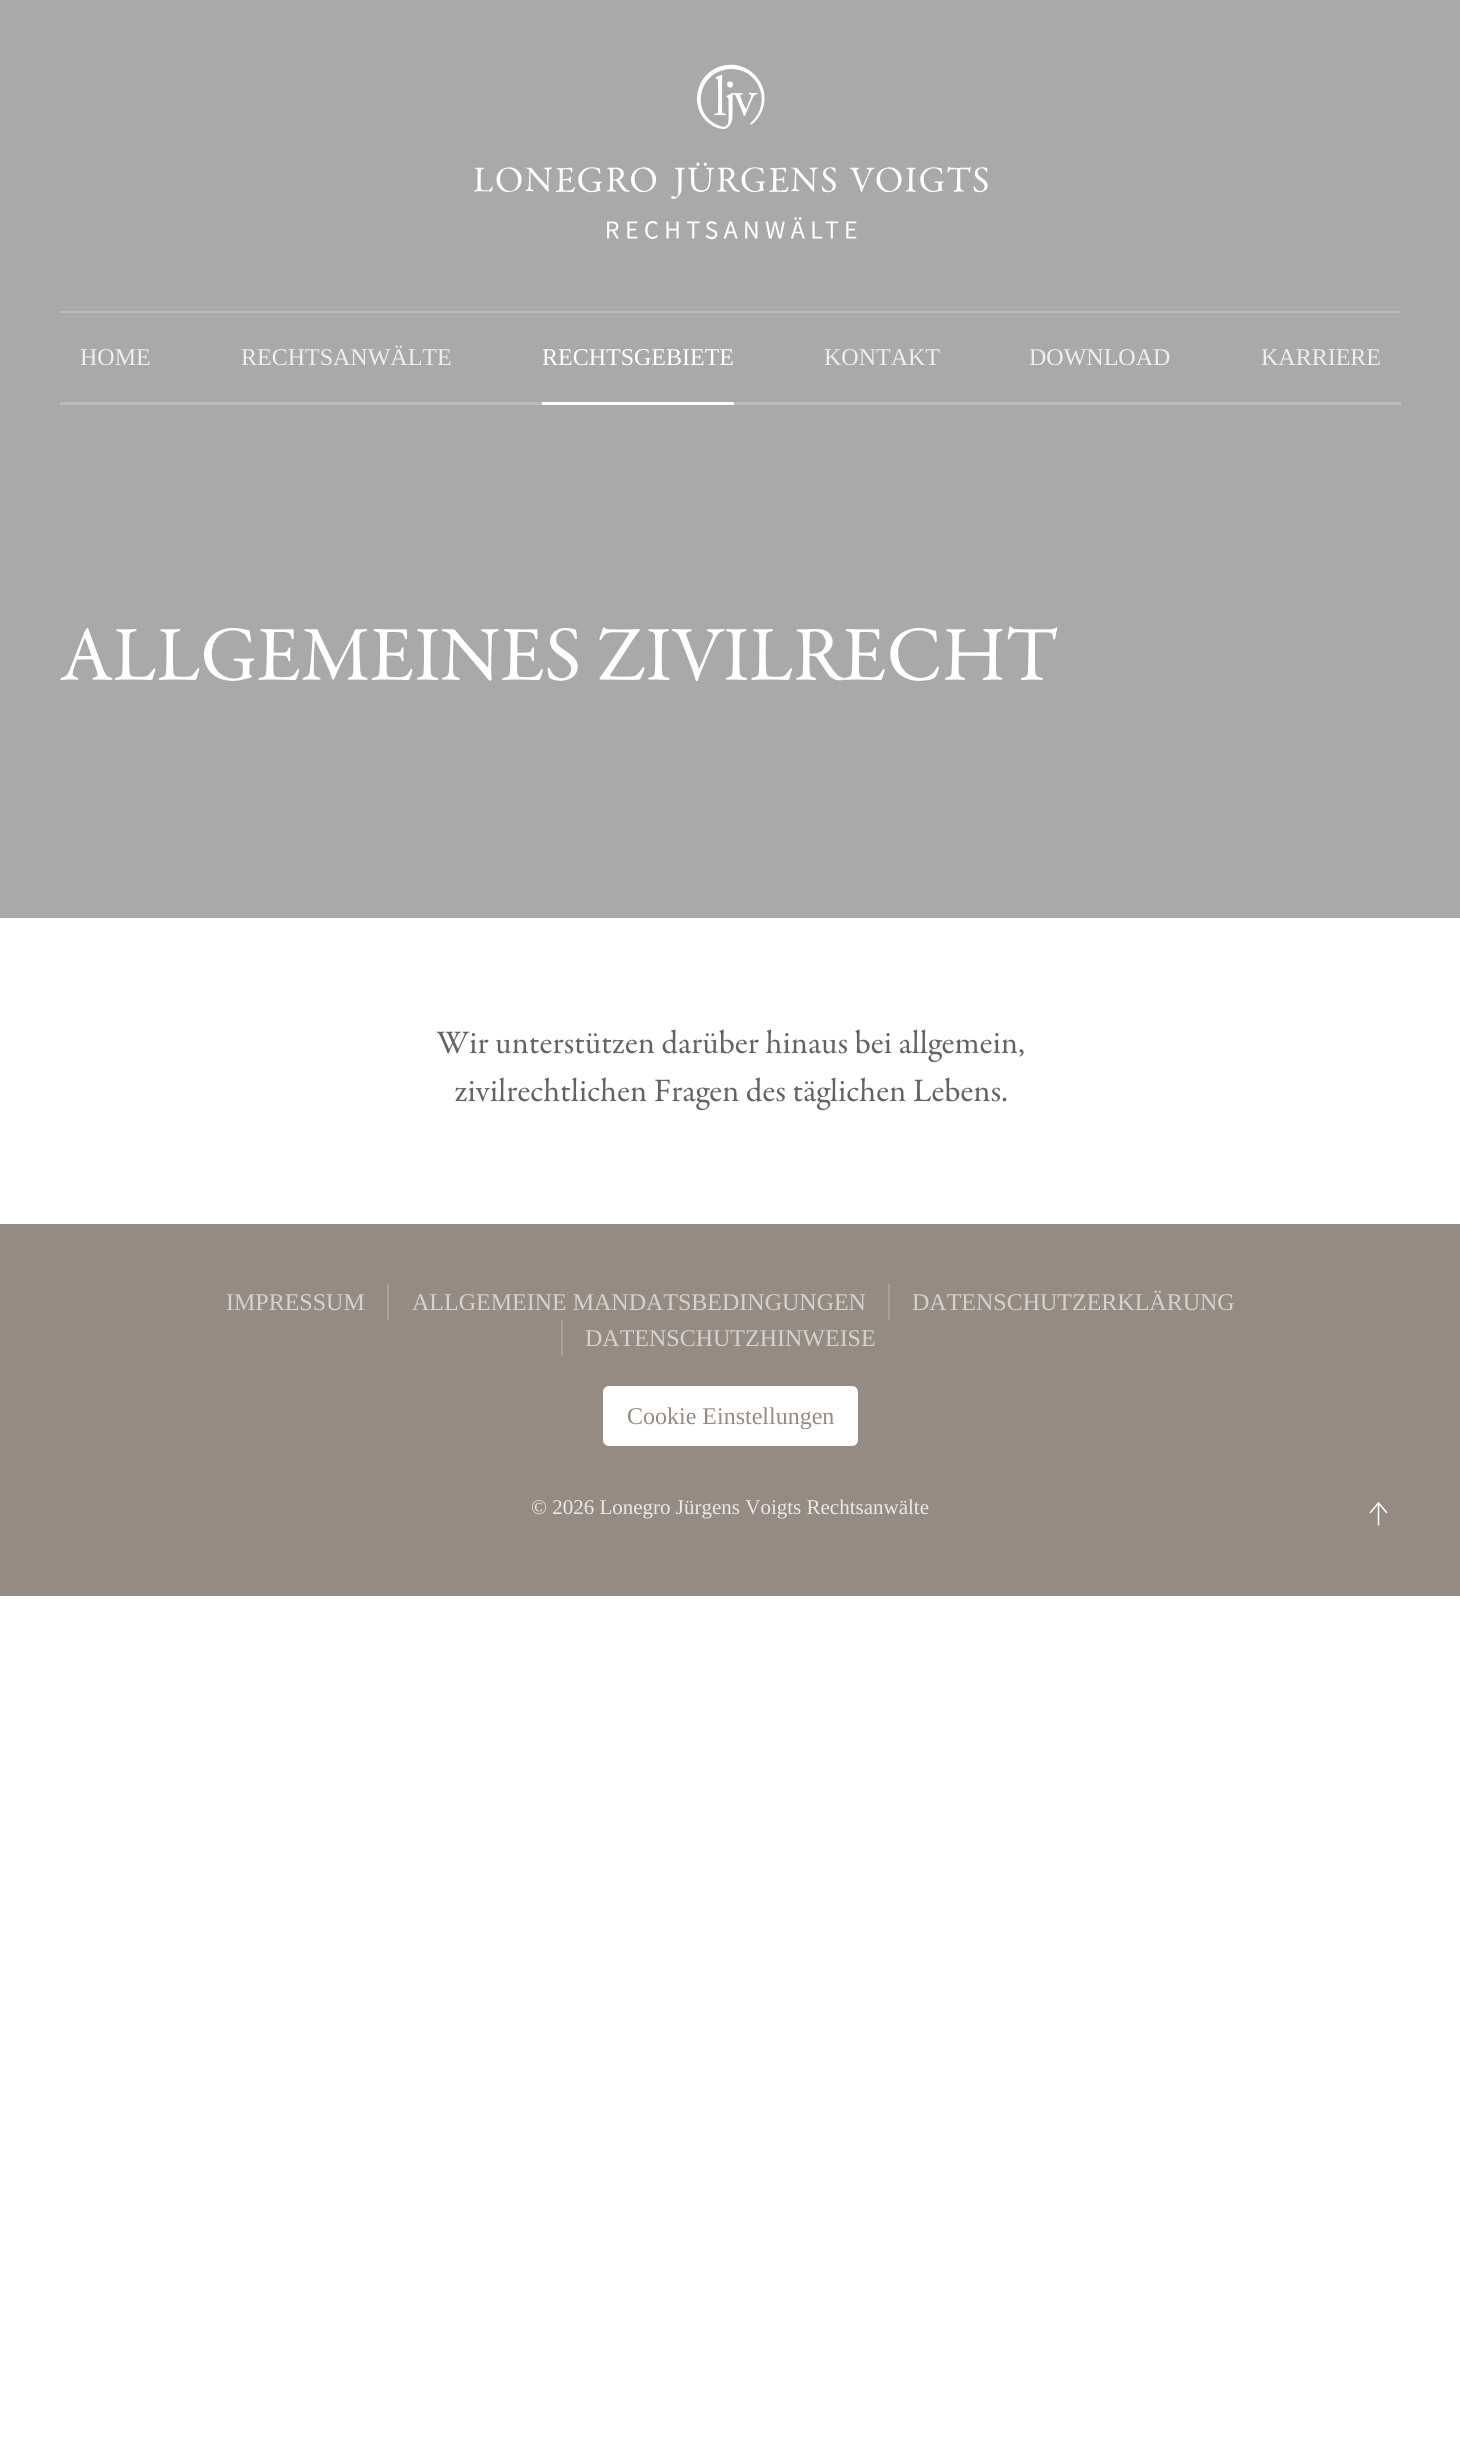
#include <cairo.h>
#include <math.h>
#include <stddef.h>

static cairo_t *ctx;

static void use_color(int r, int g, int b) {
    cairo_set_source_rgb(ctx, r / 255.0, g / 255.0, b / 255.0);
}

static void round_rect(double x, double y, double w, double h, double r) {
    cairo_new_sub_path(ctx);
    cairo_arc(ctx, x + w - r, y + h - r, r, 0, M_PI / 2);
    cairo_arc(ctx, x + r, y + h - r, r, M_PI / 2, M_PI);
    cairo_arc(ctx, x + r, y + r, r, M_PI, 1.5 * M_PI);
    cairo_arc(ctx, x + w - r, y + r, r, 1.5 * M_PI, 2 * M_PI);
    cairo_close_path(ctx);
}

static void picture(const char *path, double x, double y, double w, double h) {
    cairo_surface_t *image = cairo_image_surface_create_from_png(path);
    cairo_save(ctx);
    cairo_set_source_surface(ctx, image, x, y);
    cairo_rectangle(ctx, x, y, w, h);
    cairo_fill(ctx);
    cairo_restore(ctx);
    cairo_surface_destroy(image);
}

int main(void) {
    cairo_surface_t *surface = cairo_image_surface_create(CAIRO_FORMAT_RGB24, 1460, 2458);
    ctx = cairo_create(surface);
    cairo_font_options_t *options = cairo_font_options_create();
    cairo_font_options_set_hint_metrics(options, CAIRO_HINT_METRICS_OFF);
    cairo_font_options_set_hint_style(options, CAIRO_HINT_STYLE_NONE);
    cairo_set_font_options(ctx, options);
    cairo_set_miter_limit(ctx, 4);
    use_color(255, 255, 255);
    cairo_paint(ctx);
    use_color(169, 169, 169);
    cairo_rectangle(ctx, 0, 0, 1460, 918);
    cairo_fill(ctx);
    picture("img1.png", 60, 626, 998, 56);
    picture("img2.png", 436, 1029, 588, 34);
    picture("img3.png", 455, 1077, 552, 34);
    picture("img4.png", 474, 64, 514, 176);
    use_color(186, 186, 186);
    cairo_rectangle(ctx, 60, 311, 1341, 2);
    cairo_fill(ctx);
    cairo_rectangle(ctx, 60, 402, 1341, 3);
    cairo_fill(ctx);
    cairo_select_font_face(ctx, "Liberation Serif", CAIRO_FONT_SLANT_NORMAL, CAIRO_FONT_WEIGHT_NORMAL);
    cairo_set_font_size(ctx, 24);
    use_color(238, 238, 238);
    cairo_move_to(ctx, 80, 365);
    cairo_show_text(ctx, "HOME");
    cairo_move_to(ctx, 241, 365);
    cairo_show_text(ctx, "RECHTSANWÄLTE");
    use_color(255, 255, 255);
    cairo_move_to(ctx, 542, 365);
    cairo_show_text(ctx, "RECHTSGEBIETE");
    cairo_rectangle(ctx, 542, 402, 192, 3);
    cairo_fill(ctx);
    use_color(238, 238, 238);
    cairo_move_to(ctx, 824, 365);
    cairo_show_text(ctx, "KONTAKT");
    cairo_move_to(ctx, 1029, 365);
    cairo_show_text(ctx, "DOWNLOAD");
    cairo_move_to(ctx, 1261, 365);
    cairo_show_text(ctx, "KARRIERE");
    use_color(150, 139, 131);
    cairo_rectangle(ctx, 0, 1224, 1460, 372);
    cairo_fill(ctx);
    use_color(213, 209, 205);
    cairo_move_to(ctx, 226, 1310);
    cairo_show_text(ctx, "IMPRESSUM");
    use_color(171, 162, 156);
    cairo_rectangle(ctx, 387, 1284, 2, 36);
    cairo_fill(ctx);
    use_color(213, 209, 205);
    cairo_move_to(ctx, 412, 1310);
    cairo_show_text(ctx, "ALLGEMEINE MANDATSBEDINGUNGEN");
    use_color(171, 162, 156);
    cairo_rectangle(ctx, 888, 1284, 2, 36);
    cairo_fill(ctx);
    use_color(213, 209, 205);
    cairo_move_to(ctx, 912, 1310);
    cairo_show_text(ctx, "DATENSCHUTZERKLÄRUNG");
    use_color(171, 162, 156);
    cairo_rectangle(ctx, 561, 1320, 2, 36);
    cairo_fill(ctx);
    use_color(213, 209, 205);
    cairo_move_to(ctx, 585, 1346);
    cairo_show_text(ctx, "DATENSCHUTZHINWEISE");
    use_color(255, 255, 255);
    round_rect(603, 1386, 255, 60, 6);
    cairo_fill(ctx);
    use_color(150, 139, 131);
    cairo_move_to(ctx, 627, 1424);
    cairo_show_text(ctx, "Cookie Einstellungen");
    cairo_set_font_size(ctx, 21);
    use_color(234, 232, 230);
    cairo_move_to(ctx, 531, 1514);
    cairo_show_text(ctx, "© 2026 Lonegro Jürgens Voigts Rechtsanwälte");
    cairo_new_path(ctx);
    cairo_move_to(ctx, 1370, 1513);
    cairo_line_to(ctx, 1378.5, 1503);
    cairo_line_to(ctx, 1387, 1513);
    cairo_move_to(ctx, 1378.5, 1525.5);
    cairo_line_to(ctx, 1378.5, 1504.5);
    use_color(255, 255, 255);
    cairo_set_line_width(ctx, 1.5);
    cairo_stroke(ctx);
    cairo_surface_write_to_png(surface, "result.png");
    cairo_font_options_destroy(options);
    cairo_destroy(ctx);
    cairo_surface_destroy(surface);
    return 0;
}
